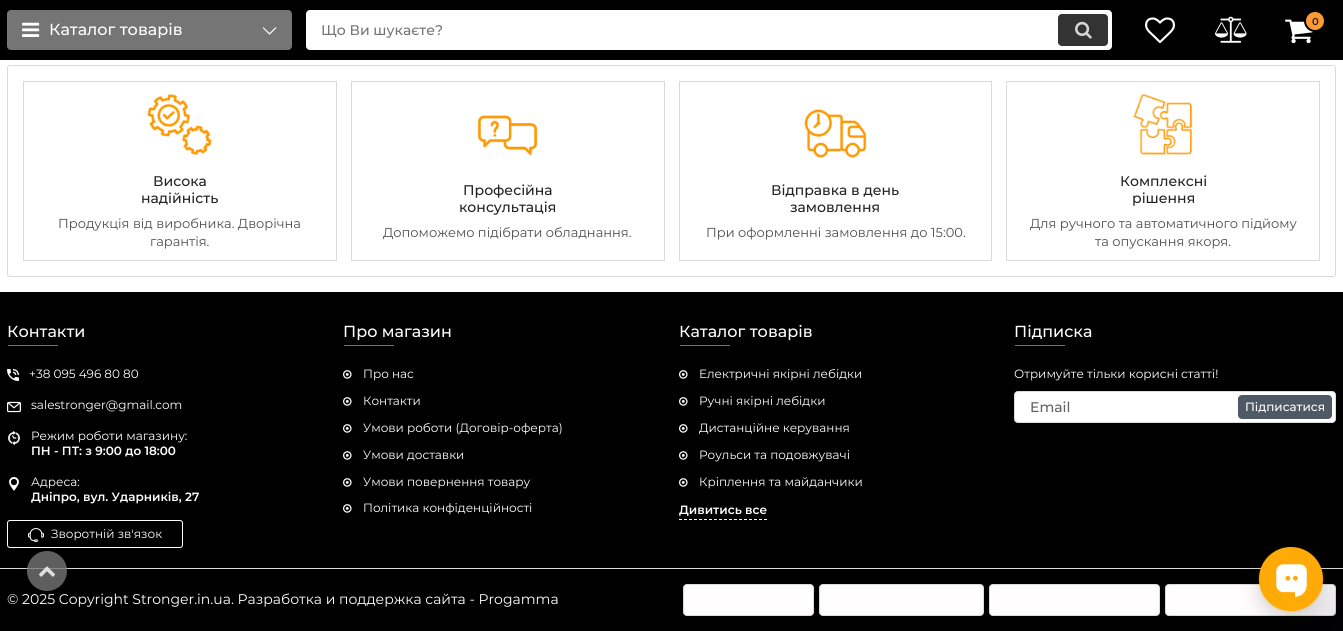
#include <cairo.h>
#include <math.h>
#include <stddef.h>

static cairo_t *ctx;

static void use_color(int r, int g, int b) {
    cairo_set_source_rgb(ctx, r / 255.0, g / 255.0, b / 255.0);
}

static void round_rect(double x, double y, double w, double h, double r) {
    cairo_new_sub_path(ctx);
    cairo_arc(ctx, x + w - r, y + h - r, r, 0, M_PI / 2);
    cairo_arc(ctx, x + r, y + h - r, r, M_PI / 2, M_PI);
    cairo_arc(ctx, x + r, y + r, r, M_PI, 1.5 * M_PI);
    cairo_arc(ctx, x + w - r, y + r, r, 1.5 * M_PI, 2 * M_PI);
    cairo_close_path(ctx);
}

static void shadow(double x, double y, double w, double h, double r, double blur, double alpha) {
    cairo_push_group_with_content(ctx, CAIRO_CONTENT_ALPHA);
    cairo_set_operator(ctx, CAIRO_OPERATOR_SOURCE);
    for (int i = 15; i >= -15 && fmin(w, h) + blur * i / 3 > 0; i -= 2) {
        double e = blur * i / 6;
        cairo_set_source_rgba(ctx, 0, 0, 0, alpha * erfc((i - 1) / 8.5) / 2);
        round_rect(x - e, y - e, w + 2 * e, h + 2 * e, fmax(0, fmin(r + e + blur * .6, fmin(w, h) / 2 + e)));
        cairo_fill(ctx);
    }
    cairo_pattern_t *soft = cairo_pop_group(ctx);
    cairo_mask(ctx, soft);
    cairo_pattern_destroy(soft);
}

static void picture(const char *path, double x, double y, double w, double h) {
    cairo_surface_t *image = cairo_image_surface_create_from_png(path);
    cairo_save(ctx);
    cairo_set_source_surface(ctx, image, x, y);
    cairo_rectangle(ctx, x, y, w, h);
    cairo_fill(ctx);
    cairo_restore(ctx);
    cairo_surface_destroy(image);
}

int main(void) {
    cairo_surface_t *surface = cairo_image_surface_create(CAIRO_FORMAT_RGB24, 1343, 631);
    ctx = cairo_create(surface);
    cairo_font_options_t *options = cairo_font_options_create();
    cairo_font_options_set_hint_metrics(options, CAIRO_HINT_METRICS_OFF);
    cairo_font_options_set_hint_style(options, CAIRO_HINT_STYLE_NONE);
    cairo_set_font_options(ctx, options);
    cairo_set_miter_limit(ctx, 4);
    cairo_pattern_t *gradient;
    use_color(255, 255, 255);
    cairo_paint(ctx);
    use_color(0, 0, 0);
    cairo_rectangle(ctx, 0, 0, 1343, 60);
    cairo_fill(ctx);
    use_color(117, 117, 117);
    round_rect(7, 10, 285, 40, 4);
    cairo_fill(ctx);
    picture("img1.png", 22, 22, 18, 15);
    cairo_select_font_face(ctx, "Montserrat Medium", CAIRO_FONT_SLANT_NORMAL, CAIRO_FONT_WEIGHT_NORMAL);
    cairo_set_font_size(ctx, 16);
    use_color(255, 255, 255);
    cairo_move_to(ctx, 49, 35);
    cairo_show_text(ctx, "Каталог товарів");
    picture("img2.png", 263, 27, 14, 8);
    round_rect(306, 10, 806, 40, 4);
    cairo_fill(ctx);
    cairo_set_font_size(ctx, 14);
    use_color(117, 117, 117);
    cairo_move_to(ctx, 321, 35);
    cairo_show_text(ctx, "Що Ви шукаєте?");
    use_color(51, 51, 51);
    round_rect(1058, 14, 50, 32, 4);
    cairo_fill(ctx);
    picture("img3.png", 1075, 21, 17, 18);
    picture("img4.png", 1145, 17, 30, 27);
    picture("img5.png", 1215, 16, 32, 27);
    picture("img6.png", 1285, 19, 28, 25);
    use_color(255, 153, 51);
    cairo_arc(ctx, 1315, 21, 10, 0, 2 * M_PI);
    cairo_fill_preserve(ctx);
    use_color(0, 0, 0);
    cairo_stroke(ctx);
    cairo_select_font_face(ctx, "Montserrat SemiBold", CAIRO_FONT_SLANT_NORMAL, CAIRO_FONT_WEIGHT_NORMAL);
    cairo_set_font_size(ctx, 10);
    use_color(34, 34, 34);
    cairo_move_to(ctx, 1312, 25);
    cairo_show_text(ctx, "0");
    round_rect(7.5, 65.5, 1328, 211, 2.5);
    use_color(219, 219, 219);
    cairo_set_line_width(ctx, 1);
    cairo_stroke(ctx);
    cairo_rectangle(ctx, 23.5, 81.5, 313, 179);
    cairo_stroke(ctx);
    picture("img7.png", 147, 94, 65, 61);
    cairo_select_font_face(ctx, "Montserrat Medium", CAIRO_FONT_SLANT_NORMAL, CAIRO_FONT_WEIGHT_NORMAL);
    cairo_set_font_size(ctx, 14);
    use_color(34, 34, 34);
    cairo_move_to(ctx, 153, 186);
    cairo_show_text(ctx, "Висока");
    cairo_move_to(ctx, 141, 203);
    cairo_show_text(ctx, "надійність");
    cairo_select_font_face(ctx, "Montserrat", CAIRO_FONT_SLANT_NORMAL, CAIRO_FONT_WEIGHT_NORMAL);
    cairo_set_font_size(ctx, 13);
    use_color(78, 78, 78);
    cairo_move_to(ctx, 58, 228);
    cairo_show_text(ctx, "Продукція від виробника. Дворічна");
    cairo_move_to(ctx, 150, 246);
    cairo_show_text(ctx, "гарантія.");
    cairo_rectangle(ctx, 351.5, 81.5, 313, 179);
    use_color(219, 219, 219);
    cairo_stroke(ctx);
    picture("img8.png", 477, 115, 61, 41);
    cairo_select_font_face(ctx, "Montserrat Medium", CAIRO_FONT_SLANT_NORMAL, CAIRO_FONT_WEIGHT_NORMAL);
    cairo_set_font_size(ctx, 14);
    use_color(34, 34, 34);
    cairo_move_to(ctx, 463, 195);
    cairo_show_text(ctx, "Професійна");
    cairo_move_to(ctx, 459, 212);
    cairo_show_text(ctx, "консультація");
    cairo_select_font_face(ctx, "Montserrat", CAIRO_FONT_SLANT_NORMAL, CAIRO_FONT_WEIGHT_NORMAL);
    cairo_set_font_size(ctx, 13);
    use_color(78, 78, 78);
    cairo_move_to(ctx, 383, 237);
    cairo_show_text(ctx, "Допоможемо підібрати обладнання.");
    cairo_rectangle(ctx, 679.5, 81.5, 312, 179);
    use_color(219, 219, 219);
    cairo_stroke(ctx);
    picture("img9.png", 804, 109, 63, 49);
    cairo_select_font_face(ctx, "Montserrat Medium", CAIRO_FONT_SLANT_NORMAL, CAIRO_FONT_WEIGHT_NORMAL);
    cairo_set_font_size(ctx, 14);
    use_color(34, 34, 34);
    cairo_move_to(ctx, 771, 195);
    cairo_show_text(ctx, "Відправка в день");
    cairo_move_to(ctx, 790, 212);
    cairo_show_text(ctx, "замовлення");
    cairo_select_font_face(ctx, "Montserrat", CAIRO_FONT_SLANT_NORMAL, CAIRO_FONT_WEIGHT_NORMAL);
    cairo_set_font_size(ctx, 13);
    use_color(78, 78, 78);
    cairo_move_to(ctx, 706, 237);
    cairo_show_text(ctx, "При оформленні замовлення до 15:00.");
    cairo_rectangle(ctx, 1006.5, 81.5, 313, 179);
    use_color(219, 219, 219);
    cairo_stroke(ctx);
    picture("img10.png", 1133, 93, 60, 62);
    cairo_select_font_face(ctx, "Montserrat Medium", CAIRO_FONT_SLANT_NORMAL, CAIRO_FONT_WEIGHT_NORMAL);
    cairo_set_font_size(ctx, 14);
    use_color(34, 34, 34);
    cairo_move_to(ctx, 1120, 186);
    cairo_show_text(ctx, "Комплексні");
    cairo_move_to(ctx, 1132, 203);
    cairo_show_text(ctx, "рішення");
    cairo_select_font_face(ctx, "Montserrat", CAIRO_FONT_SLANT_NORMAL, CAIRO_FONT_WEIGHT_NORMAL);
    cairo_set_font_size(ctx, 13);
    use_color(78, 78, 78);
    cairo_move_to(ctx, 1030, 228);
    cairo_show_text(ctx, "Для ручного та автоматичного підйому");
    cairo_move_to(ctx, 1095, 246);
    cairo_show_text(ctx, "та опускання якоря.");
    use_color(0, 0, 0);
    cairo_rectangle(ctx, 0, 292, 1343, 339);
    cairo_fill(ctx);
    cairo_select_font_face(ctx, "Montserrat Medium", CAIRO_FONT_SLANT_NORMAL, CAIRO_FONT_WEIGHT_NORMAL);
    cairo_set_font_size(ctx, 16);
    use_color(255, 255, 255);
    cairo_move_to(ctx, 7, 337);
    cairo_show_text(ctx, "Контакти");
    use_color(117, 117, 117);
    cairo_rectangle(ctx, 8, 345, 50, 1);
    cairo_fill(ctx);
    picture("img11.png", 7, 369, 12, 12);
    cairo_select_font_face(ctx, "Montserrat", CAIRO_FONT_SLANT_NORMAL, CAIRO_FONT_WEIGHT_NORMAL);
    cairo_set_font_size(ctx, 12);
    use_color(255, 255, 255);
    cairo_move_to(ctx, 29, 378);
    cairo_show_text(ctx, "+38 095 496 80 80");
    picture("img12.png", 7, 401, 14, 12);
    cairo_move_to(ctx, 31, 409);
    cairo_show_text(ctx, "salestronger@gmail.com");
    picture("img13.png", 8, 431, 12, 14);
    cairo_move_to(ctx, 31, 440);
    cairo_show_text(ctx, "Режим роботи магазину:");
    cairo_select_font_face(ctx, "Montserrat SemiBold", CAIRO_FONT_SLANT_NORMAL, CAIRO_FONT_WEIGHT_NORMAL);
    cairo_move_to(ctx, 31, 455);
    cairo_show_text(ctx, "ПН - ПТ: з 9:00 до 18:00");
    picture("img14.png", 9, 477, 10, 14);
    cairo_select_font_face(ctx, "Montserrat", CAIRO_FONT_SLANT_NORMAL, CAIRO_FONT_WEIGHT_NORMAL);
    cairo_move_to(ctx, 31, 486);
    cairo_show_text(ctx, "Адреса:");
    cairo_select_font_face(ctx, "Montserrat SemiBold", CAIRO_FONT_SLANT_NORMAL, CAIRO_FONT_WEIGHT_NORMAL);
    cairo_move_to(ctx, 31, 501);
    cairo_show_text(ctx, "Дніпро, вул. Ударників, 27");
    round_rect(7.5, 520.5, 175, 27, 2.5);
    cairo_stroke(ctx);
    picture("img15.png", 28, 528, 16, 14);
    cairo_select_font_face(ctx, "Montserrat", CAIRO_FONT_SLANT_NORMAL, CAIRO_FONT_WEIGHT_NORMAL);
    cairo_move_to(ctx, 51, 538);
    cairo_show_text(ctx, "Зворотній зв'язок");
    cairo_select_font_face(ctx, "Montserrat Medium", CAIRO_FONT_SLANT_NORMAL, CAIRO_FONT_WEIGHT_NORMAL);
    cairo_set_font_size(ctx, 16);
    cairo_move_to(ctx, 343, 337);
    cairo_show_text(ctx, "Про магазин");
    use_color(117, 117, 117);
    cairo_rectangle(ctx, 344, 345, 50, 1);
    cairo_fill(ctx);
    picture("img16.png", 343, 370, 9, 9);
    cairo_select_font_face(ctx, "Montserrat", CAIRO_FONT_SLANT_NORMAL, CAIRO_FONT_WEIGHT_NORMAL);
    cairo_set_font_size(ctx, 12);
    use_color(255, 255, 255);
    cairo_move_to(ctx, 363, 378);
    cairo_show_text(ctx, "Про нас");
    picture("img16.png", 343, 397, 9, 9);
    cairo_move_to(ctx, 363, 405);
    cairo_show_text(ctx, "Контакти");
    picture("img16.png", 343, 424, 9, 9);
    cairo_move_to(ctx, 363, 432);
    cairo_show_text(ctx, "Умови роботи (Договір-оферта)");
    picture("img16.png", 343, 451, 9, 9);
    cairo_move_to(ctx, 363, 459);
    cairo_show_text(ctx, "Умови доставки");
    picture("img16.png", 343, 478, 9, 9);
    cairo_move_to(ctx, 363, 486);
    cairo_show_text(ctx, "Умови повернення товару");
    picture("img16.png", 343, 504, 9, 9);
    cairo_move_to(ctx, 363, 512);
    cairo_show_text(ctx, "Політика конфіденційності");
    cairo_select_font_face(ctx, "Montserrat Medium", CAIRO_FONT_SLANT_NORMAL, CAIRO_FONT_WEIGHT_NORMAL);
    cairo_set_font_size(ctx, 16);
    cairo_move_to(ctx, 679, 337);
    cairo_show_text(ctx, "Каталог товарів");
    use_color(117, 117, 117);
    cairo_rectangle(ctx, 680, 345, 50, 1);
    cairo_fill(ctx);
    picture("img16.png", 679, 370, 9, 9);
    cairo_select_font_face(ctx, "Montserrat", CAIRO_FONT_SLANT_NORMAL, CAIRO_FONT_WEIGHT_NORMAL);
    cairo_set_font_size(ctx, 12);
    use_color(255, 255, 255);
    cairo_move_to(ctx, 699, 378);
    cairo_show_text(ctx, "Електричні якірні лебідки");
    picture("img16.png", 679, 397, 9, 9);
    cairo_move_to(ctx, 699, 405);
    cairo_show_text(ctx, "Ручні якірні лебідки");
    picture("img16.png", 679, 424, 9, 9);
    cairo_move_to(ctx, 699, 432);
    cairo_show_text(ctx, "Дистанційне керування");
    picture("img16.png", 679, 451, 9, 9);
    cairo_move_to(ctx, 699, 459);
    cairo_show_text(ctx, "Роульси та подовжувачі");
    picture("img16.png", 679, 478, 9, 9);
    cairo_move_to(ctx, 699, 486);
    cairo_show_text(ctx, "Кріплення та майданчики");
    cairo_new_path(ctx);
    cairo_move_to(ctx, 679, 519.5);
    cairo_line_to(ctx, 767, 519.5);
    cairo_set_dash(ctx, (double[]){3, 2}, 2, 0);
    cairo_stroke(ctx);
    cairo_select_font_face(ctx, "Montserrat SemiBold", CAIRO_FONT_SLANT_NORMAL, CAIRO_FONT_WEIGHT_NORMAL);
    cairo_move_to(ctx, 679, 514);
    cairo_show_text(ctx, "Дивитись все");
    cairo_select_font_face(ctx, "Montserrat Medium", CAIRO_FONT_SLANT_NORMAL, CAIRO_FONT_WEIGHT_NORMAL);
    cairo_set_font_size(ctx, 16);
    cairo_move_to(ctx, 1014, 337);
    cairo_show_text(ctx, "Підписка");
    use_color(117, 117, 117);
    cairo_rectangle(ctx, 1015, 345, 50, 1);
    cairo_fill(ctx);
    cairo_select_font_face(ctx, "Montserrat", CAIRO_FONT_SLANT_NORMAL, CAIRO_FONT_WEIGHT_NORMAL);
    cairo_set_font_size(ctx, 12);
    use_color(255, 255, 255);
    cairo_move_to(ctx, 1014, 378);
    cairo_show_text(ctx, "Отримуйте тільки корисні статті!");
    round_rect(1014.5, 391.5, 321, 31, 3.5);
    cairo_fill_preserve(ctx);
    use_color(219, 219, 219);
    cairo_set_dash(ctx, NULL, 0, 0);
    cairo_stroke(ctx);
    cairo_select_font_face(ctx, "Montserrat Medium", CAIRO_FONT_SLANT_NORMAL, CAIRO_FONT_WEIGHT_NORMAL);
    cairo_set_font_size(ctx, 14);
    use_color(98, 98, 98);
    cairo_move_to(ctx, 1030, 412);
    cairo_show_text(ctx, "Email");
    use_color(79, 89, 101);
    round_rect(1238, 395, 94, 24, 4);
    cairo_fill(ctx);
    cairo_set_font_size(ctx, 12);
    use_color(255, 255, 255);
    cairo_move_to(ctx, 1245, 411);
    cairo_show_text(ctx, "Підписатися");
    use_color(219, 219, 219);
    cairo_rectangle(ctx, 0, 568, 1343, 1);
    cairo_fill(ctx);
    cairo_select_font_face(ctx, "Montserrat", CAIRO_FONT_SLANT_NORMAL, CAIRO_FONT_WEIGHT_NORMAL);
    cairo_set_font_size(ctx, 14);
    use_color(255, 255, 255);
    cairo_move_to(ctx, 7, 604);
    cairo_show_text(ctx, "© 2025 Copyright Stronger.in.ua. Разработка и поддержка сайта - Progamma");
    use_color(255, 253, 253);
    round_rect(683.5, 584.5, 130, 31, 3.5);
    cairo_fill_preserve(ctx);
    use_color(219, 219, 219);
    cairo_stroke(ctx);
    use_color(255, 253, 253);
    round_rect(819.5, 584.5, 164, 31, 3.5);
    cairo_fill_preserve(ctx);
    use_color(219, 219, 219);
    cairo_stroke(ctx);
    use_color(255, 253, 253);
    round_rect(989.5, 584.5, 170, 31, 3.5);
    cairo_fill_preserve(ctx);
    use_color(219, 219, 219);
    cairo_stroke(ctx);
    use_color(255, 253, 253);
    round_rect(1165.5, 584.5, 170, 31, 3.5);
    cairo_fill_preserve(ctx);
    use_color(219, 219, 219);
    cairo_stroke(ctx);
    cairo_save(ctx);
    cairo_set_fill_rule(ctx, CAIRO_FILL_RULE_EVEN_ODD);
    cairo_new_path(ctx);
    cairo_move_to(ctx, 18, 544);
    cairo_line_to(ctx, 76, 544);
    cairo_line_to(ctx, 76, 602);
    cairo_line_to(ctx, 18, 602);
    cairo_close_path(ctx);
    cairo_move_to(ctx, 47, 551);
    cairo_curve_to(ctx, 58, 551, 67, 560, 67, 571);
    cairo_curve_to(ctx, 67, 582, 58, 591, 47, 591);
    cairo_curve_to(ctx, 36, 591, 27, 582, 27, 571);
    cairo_curve_to(ctx, 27, 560, 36, 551, 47, 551);
    cairo_close_path(ctx);
    cairo_clip(ctx);
    use_color(0, 0, 0);
    shadow(27, 553, 40, 40, 20, 2.5, 0.24);
    cairo_restore(ctx);
    cairo_set_source_rgba(ctx, 0.459, 0.459, 0.459, 0.8);
    cairo_arc(ctx, 47, 571, 20, 0, 2 * M_PI);
    cairo_fill(ctx);
    picture("img17.png", 39, 566, 16, 11);
    gradient = cairo_pattern_create_linear(1243, 531, 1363, 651);
    cairo_pattern_add_color_stop_rgba(gradient, 0.5, 0.055, 0.055, 0.161, 0);
    cairo_pattern_add_color_stop_rgba(gradient, 1, 0.055, 0.055, 0.161, 0.2);
    cairo_set_source(ctx, gradient);
    cairo_pattern_destroy(gradient);
    cairo_rectangle(ctx, 1285, 568, 58, 63);
    cairo_fill(ctx);
    use_color(0, 0, 0);
    shadow(1259, 555, 64, 64, 32, 10, 0.16);
    use_color(255, 170, 6);
    shadow(1261, 550, 60, 60, 30, 2, 1);
    use_color(255, 170, 6);
    cairo_arc(ctx, 1291, 579, 32, 0, 2 * M_PI);
    cairo_fill(ctx);
    picture("img18.png", 1276, 564, 31, 33);
    cairo_surface_write_to_png(surface, "result.png");
    cairo_font_options_destroy(options);
    cairo_destroy(ctx);
    cairo_surface_destroy(surface);
    return 0;
}
